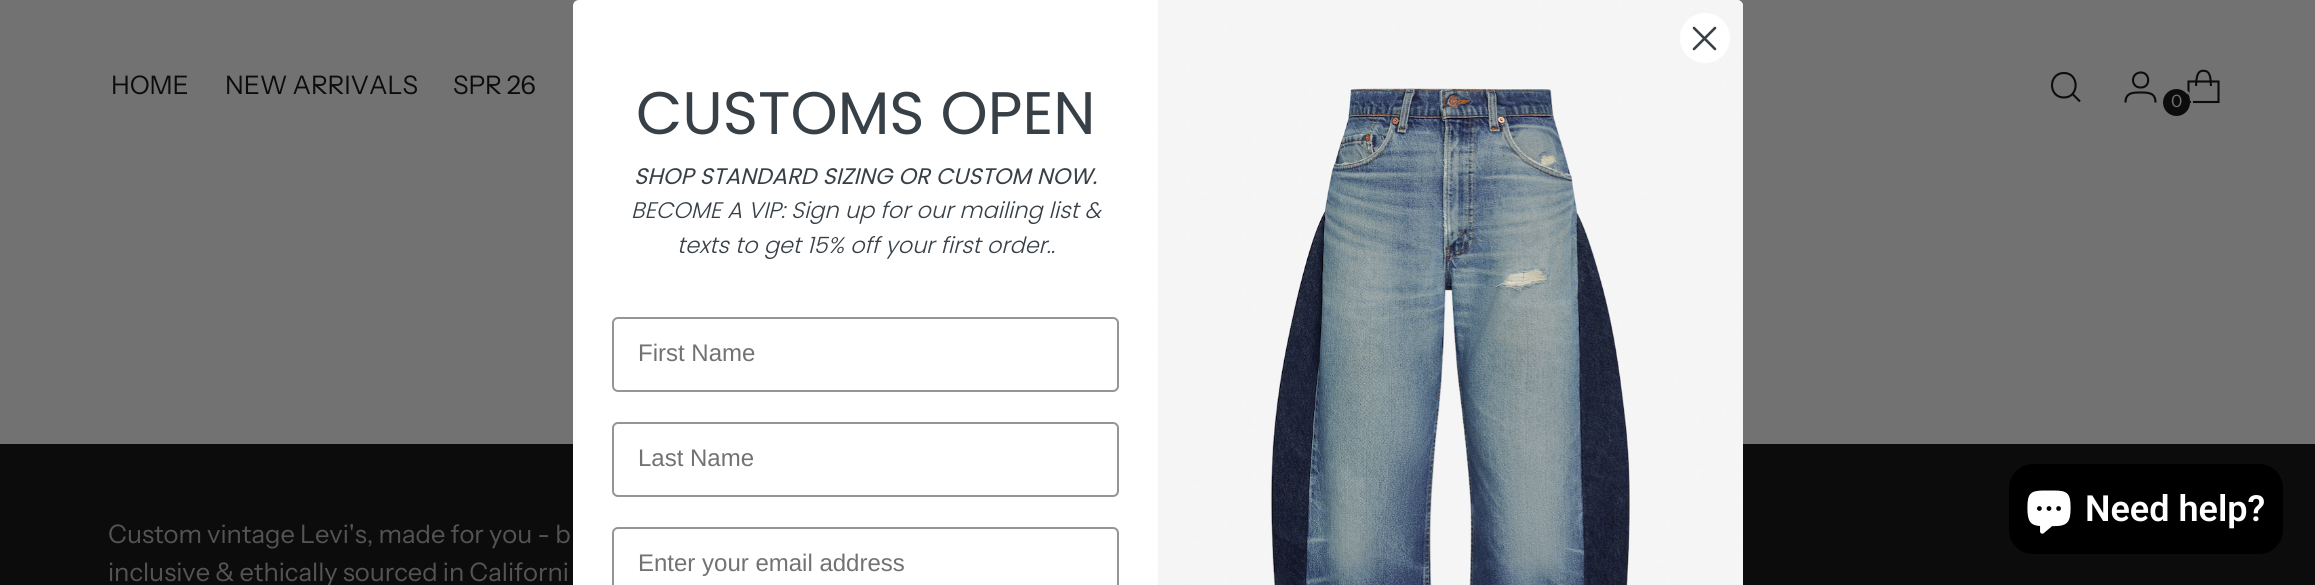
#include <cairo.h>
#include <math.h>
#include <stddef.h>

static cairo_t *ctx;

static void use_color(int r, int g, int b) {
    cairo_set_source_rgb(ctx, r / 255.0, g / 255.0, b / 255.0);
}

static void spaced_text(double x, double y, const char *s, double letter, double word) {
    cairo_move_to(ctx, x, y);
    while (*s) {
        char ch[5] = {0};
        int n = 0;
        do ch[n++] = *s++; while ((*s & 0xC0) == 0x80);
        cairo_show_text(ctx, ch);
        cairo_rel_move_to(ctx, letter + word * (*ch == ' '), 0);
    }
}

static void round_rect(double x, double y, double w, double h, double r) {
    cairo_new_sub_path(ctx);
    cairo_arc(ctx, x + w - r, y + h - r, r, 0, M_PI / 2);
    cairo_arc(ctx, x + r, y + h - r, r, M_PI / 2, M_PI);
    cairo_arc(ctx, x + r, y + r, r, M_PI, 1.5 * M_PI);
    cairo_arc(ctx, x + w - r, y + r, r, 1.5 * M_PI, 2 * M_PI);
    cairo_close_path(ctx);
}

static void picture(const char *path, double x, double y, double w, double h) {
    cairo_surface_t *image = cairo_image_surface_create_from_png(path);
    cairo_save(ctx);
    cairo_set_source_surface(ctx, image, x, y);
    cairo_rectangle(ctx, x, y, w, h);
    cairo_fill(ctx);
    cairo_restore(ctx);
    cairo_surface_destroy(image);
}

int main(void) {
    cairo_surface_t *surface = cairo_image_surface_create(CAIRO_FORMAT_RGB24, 2315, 585);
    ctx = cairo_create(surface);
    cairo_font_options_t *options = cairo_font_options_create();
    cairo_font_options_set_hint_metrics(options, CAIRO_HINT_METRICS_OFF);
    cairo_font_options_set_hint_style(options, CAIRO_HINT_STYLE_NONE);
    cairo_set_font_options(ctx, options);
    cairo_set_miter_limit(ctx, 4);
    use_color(114, 114, 114);
    cairo_paint(ctx);
    cairo_select_font_face(ctx, "Instrument Sans", CAIRO_FONT_SLANT_NORMAL, CAIRO_FONT_WEIGHT_NORMAL);
    cairo_set_font_size(ctx, 25.5);
    use_color(12, 12, 12);
    spaced_text(111, 94, "HOME", -0.1, 0);
    spaced_text(225, 94, "NEW ARRIVALS", -0.1, 0);
    spaced_text(453, 94, "SPR 26", -0.1, 0);
    cairo_new_path(ctx);
    cairo_move_to(ctx, 2064, 97.5);
    cairo_curve_to(ctx, 2079.5, 97.5, 2079.5, 73, 2064, 73);
    cairo_curve_to(ctx, 2048, 73, 2048, 97.5, 2064, 97.5);
    cairo_close_path(ctx);
    cairo_set_line_width(ctx, 2.1);
    cairo_set_line_cap(ctx, CAIRO_LINE_CAP_ROUND);
    cairo_stroke(ctx);
    cairo_new_path(ctx);
    cairo_move_to(ctx, 2072.5, 94);
    cairo_line_to(ctx, 2080, 101.5);
    cairo_set_line_cap(ctx, CAIRO_LINE_CAP_BUTT);
    cairo_stroke(ctx);
    cairo_new_path(ctx);
    cairo_move_to(ctx, 2140.5, 87.5);
    cairo_curve_to(ctx, 2151, 88, 2150.5, 72, 2140.5, 72.5);
    cairo_curve_to(ctx, 2130.5, 73, 2130.5, 87.5, 2140.5, 87.5);
    cairo_close_path(ctx);
    cairo_move_to(ctx, 2125.5, 102.5);
    cairo_curve_to(ctx, 2125.5, 92.5, 2133, 92.5, 2140.5, 92.5);
    cairo_curve_to(ctx, 2148, 92.5, 2155.5, 92.5, 2155.5, 102.5);
    cairo_stroke(ctx);
    cairo_new_path(ctx);
    cairo_move_to(ctx, 2211, 86);
    cairo_curve_to(ctx, 2210.5, 82.5, 2211, 78.5, 2209.5, 75);
    cairo_curve_to(ctx, 2209, 73, 2207, 71, 2205, 71);
    cairo_curve_to(ctx, 2196, 69, 2196.5, 80.5, 2196, 86);
    cairo_set_line_join(ctx, CAIRO_LINE_JOIN_BEVEL);
    cairo_stroke(ctx);
    cairo_new_path(ctx);
    cairo_move_to(ctx, 2218.5, 102);
    cairo_line_to(ctx, 2218.5, 81.5);
    cairo_line_to(ctx, 2188.5, 81.5);
    cairo_line_to(ctx, 2188.5, 102);
    cairo_close_path(ctx);
    cairo_set_line_join(ctx, CAIRO_LINE_JOIN_MITER);
    cairo_stroke(ctx);
    round_rect(2163, 88, 29, 30, 14.5);
    use_color(114, 114, 114);
    cairo_set_line_width(ctx, 2);
    cairo_stroke(ctx);
    use_color(12, 12, 12);
    cairo_arc(ctx, 2176.5, 102.5, 13.5, 0, 2 * M_PI);
    cairo_fill(ctx);
    cairo_set_font_size(ctx, 17);
    use_color(114, 114, 114);
    cairo_move_to(ctx, 2171, 107);
    cairo_show_text(ctx, "0");
    use_color(12, 12, 12);
    cairo_rectangle(ctx, 0, 444, 2315, 141);
    cairo_fill(ctx);
    cairo_set_font_size(ctx, 25.5);
    use_color(84, 84, 84);
    cairo_move_to(ctx, 108, 543);
    cairo_show_text(ctx, "Custom vintage Levi's, made for you - b");
    cairo_move_to(ctx, 108, 581);
    cairo_show_text(ctx, "inclusive & ethically sourced in Californi");
    use_color(255, 255, 255);
    cairo_new_path(ctx);
    cairo_move_to(ctx, 579, 0);
    cairo_line_to(ctx, 1737, 0);
    cairo_curve_to(ctx, 1740.5, 0, 1743, 2.5, 1743, 6);
    cairo_line_to(ctx, 1743, 585);
    cairo_line_to(ctx, 573, 585);
    cairo_line_to(ctx, 573, 6);
    cairo_curve_to(ctx, 573, 2.5, 575.5, 0, 579, 0);
    cairo_close_path(ctx);
    cairo_fill(ctx);
    picture("img1.png", 1158, 0, 585, 585);
    cairo_arc(ctx, 1705, 38, 25, 0, 2 * M_PI);
    cairo_fill(ctx);
    cairo_new_path(ctx);
    cairo_move_to(ctx, 1694, 28);
    cairo_line_to(ctx, 1715, 49);
    cairo_move_to(ctx, 1694, 49);
    cairo_line_to(ctx, 1715, 28);
    cairo_close_path(ctx);
    use_color(55, 63, 71);
    cairo_set_line_width(ctx, 2.6);
    cairo_set_line_cap(ctx, CAIRO_LINE_CAP_ROUND);
    cairo_set_line_join(ctx, CAIRO_LINE_JOIN_ROUND);
    cairo_stroke(ctx);
    cairo_select_font_face(ctx, "Poppins", CAIRO_FONT_SLANT_NORMAL, CAIRO_FONT_WEIGHT_NORMAL);
    cairo_set_font_size(ctx, 60);
    cairo_move_to(ctx, 636, 134);
    cairo_show_text(ctx, "CUSTOMS OPEN");
    cairo_select_font_face(ctx, "Poppins", CAIRO_FONT_SLANT_ITALIC, CAIRO_FONT_WEIGHT_NORMAL);
    cairo_set_font_size(ctx, 22.5);
    cairo_move_to(ctx, 634, 184);
    cairo_show_text(ctx, "SHOP STANDARD SIZING OR CUSTOM NOW.");
    cairo_select_font_face(ctx, "Poppins Light", CAIRO_FONT_SLANT_ITALIC, CAIRO_FONT_WEIGHT_NORMAL);
    cairo_move_to(ctx, 631, 218);
    cairo_show_text(ctx, "BECOME A VIP: Sign up for our mailing list &");
    cairo_move_to(ctx, 677, 253);
    cairo_show_text(ctx, "texts to get 15% off your first order..");
    round_rect(613, 318, 505, 73, 5);
    use_color(148, 149, 150);
    cairo_set_line_width(ctx, 2);
    cairo_set_line_cap(ctx, CAIRO_LINE_CAP_BUTT);
    cairo_set_line_join(ctx, CAIRO_LINE_JOIN_MITER);
    cairo_stroke(ctx);
    cairo_select_font_face(ctx, "Liberation Sans", CAIRO_FONT_SLANT_NORMAL, CAIRO_FONT_WEIGHT_NORMAL);
    cairo_set_font_size(ctx, 24);
    use_color(114, 114, 114);
    cairo_move_to(ctx, 638, 361);
    cairo_show_text(ctx, "First Name");
    round_rect(613, 423, 505, 73, 5);
    use_color(148, 149, 150);
    cairo_stroke(ctx);
    use_color(114, 114, 114);
    cairo_move_to(ctx, 638, 466);
    cairo_show_text(ctx, "Last Name");
    round_rect(613, 528, 505, 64, 5);
    use_color(148, 149, 150);
    cairo_stroke(ctx);
    use_color(114, 114, 114);
    cairo_move_to(ctx, 638, 571);
    cairo_show_text(ctx, "Enter your email address");
    use_color(0, 0, 0);
    round_rect(2009, 464, 274, 90, 24);
    cairo_fill(ctx);
    picture("img2.png", 2027, 490, 44, 44);
    cairo_select_font_face(ctx, "Roboto SemiBold", CAIRO_FONT_SLANT_NORMAL, CAIRO_FONT_WEIGHT_NORMAL);
    cairo_set_font_size(ctx, 36);
    use_color(255, 255, 255);
    cairo_move_to(ctx, 2085, 521);
    cairo_show_text(ctx, "Need help?");
    cairo_surface_write_to_png(surface, "result.png");
    cairo_font_options_destroy(options);
    cairo_destroy(ctx);
    cairo_surface_destroy(surface);
    return 0;
}
